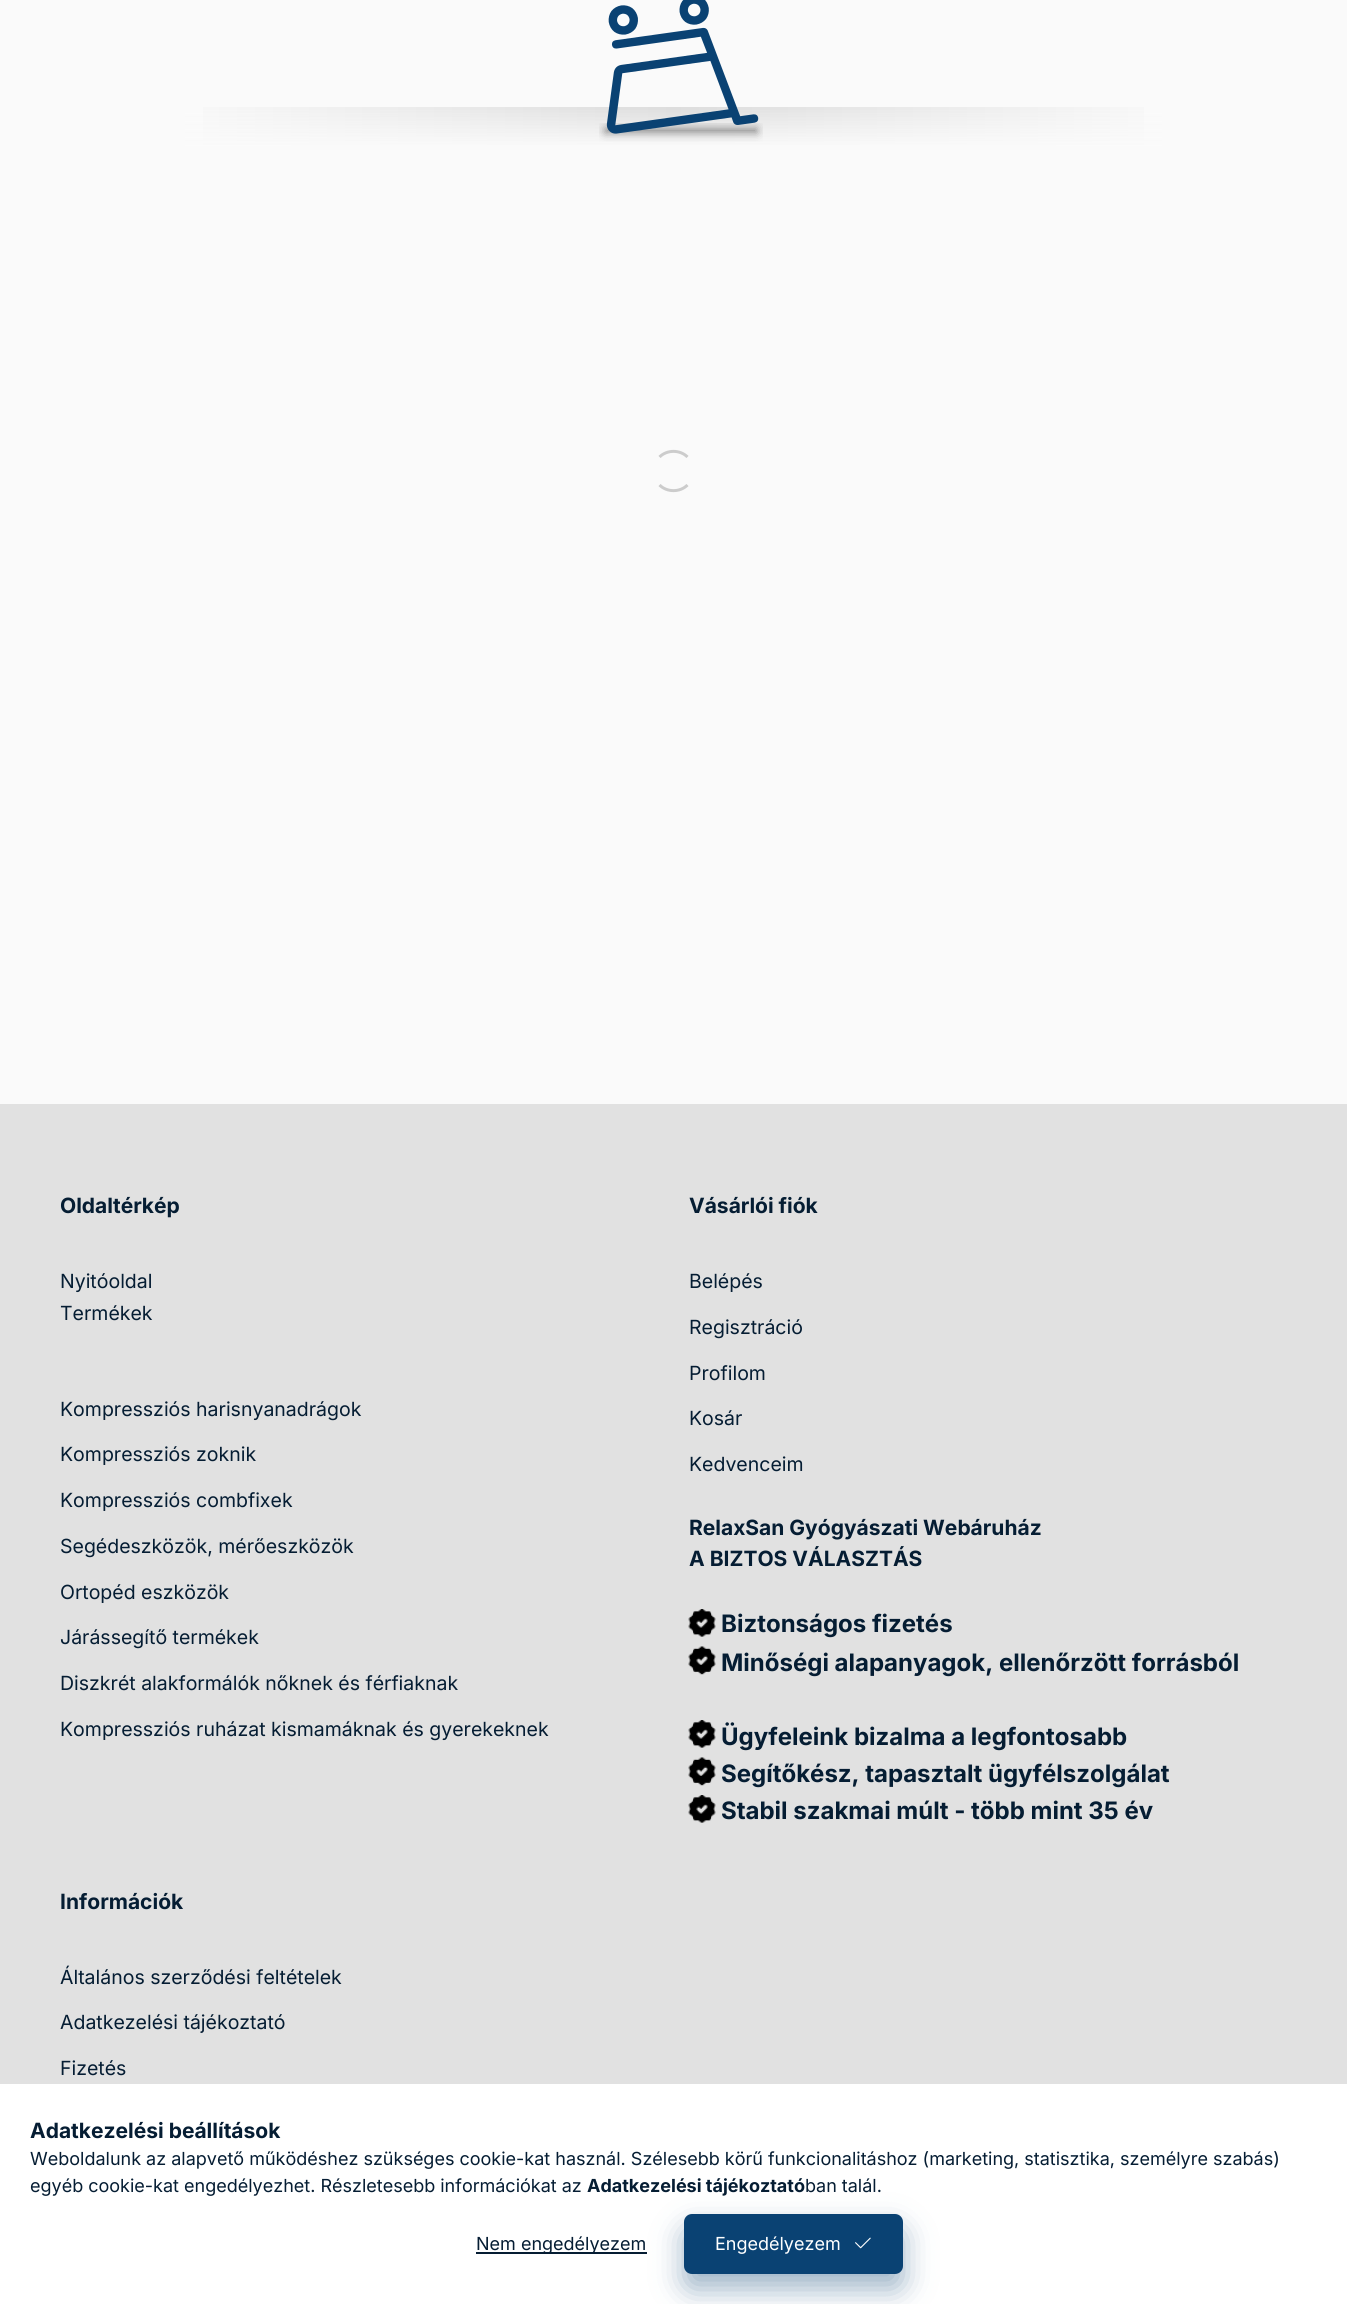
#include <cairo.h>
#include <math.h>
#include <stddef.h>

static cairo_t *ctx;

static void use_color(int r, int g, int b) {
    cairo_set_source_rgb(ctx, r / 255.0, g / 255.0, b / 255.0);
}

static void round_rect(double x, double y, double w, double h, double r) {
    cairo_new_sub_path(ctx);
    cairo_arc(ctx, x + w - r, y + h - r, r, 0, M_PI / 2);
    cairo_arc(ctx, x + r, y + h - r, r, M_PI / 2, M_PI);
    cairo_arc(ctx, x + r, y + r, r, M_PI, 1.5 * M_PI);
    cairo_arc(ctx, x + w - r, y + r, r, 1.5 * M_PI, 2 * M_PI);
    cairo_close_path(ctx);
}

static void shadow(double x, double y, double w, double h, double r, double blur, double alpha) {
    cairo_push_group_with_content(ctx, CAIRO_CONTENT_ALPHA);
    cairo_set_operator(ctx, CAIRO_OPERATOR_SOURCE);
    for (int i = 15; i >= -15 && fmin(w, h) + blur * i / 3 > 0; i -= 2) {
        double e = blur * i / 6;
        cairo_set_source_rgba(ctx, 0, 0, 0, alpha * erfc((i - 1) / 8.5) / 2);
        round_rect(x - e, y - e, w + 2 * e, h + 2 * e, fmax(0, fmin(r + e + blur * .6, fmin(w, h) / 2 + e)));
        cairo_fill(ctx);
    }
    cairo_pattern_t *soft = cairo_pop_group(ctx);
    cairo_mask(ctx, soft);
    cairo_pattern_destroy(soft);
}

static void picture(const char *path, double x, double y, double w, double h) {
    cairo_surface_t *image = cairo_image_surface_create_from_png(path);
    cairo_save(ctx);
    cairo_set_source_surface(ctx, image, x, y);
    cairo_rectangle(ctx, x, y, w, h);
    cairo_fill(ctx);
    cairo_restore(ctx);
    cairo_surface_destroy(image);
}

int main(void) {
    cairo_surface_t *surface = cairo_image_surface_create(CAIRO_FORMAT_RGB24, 1347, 2304);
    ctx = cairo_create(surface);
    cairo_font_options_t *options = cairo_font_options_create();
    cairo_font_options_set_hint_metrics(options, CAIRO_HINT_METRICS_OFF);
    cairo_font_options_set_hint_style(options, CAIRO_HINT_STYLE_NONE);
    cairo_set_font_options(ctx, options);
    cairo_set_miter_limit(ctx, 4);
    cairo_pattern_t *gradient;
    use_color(250, 250, 250);
    cairo_paint(ctx);
    gradient = cairo_pattern_create_linear(30, 127, 1317, 127);
    cairo_pattern_add_color_stop_rgba(gradient, 0.1, 0.98, 0.98, 0.98, 1);
    cairo_pattern_add_color_stop_rgba(gradient, 0.5, 0.867, 0.867, 0.867, 1);
    cairo_pattern_add_color_stop_rgba(gradient, 0.9, 0.98, 0.98, 0.98, 1);
    cairo_set_source(ctx, gradient);
    cairo_pattern_destroy(gradient);
    cairo_rectangle(ctx, 203, 107, 941, 40);
    cairo_fill(ctx);
    gradient = cairo_pattern_create_linear(674, 147, 674, 107);
    cairo_pattern_add_color_stop_rgba(gradient, 0, 0.98, 0.98, 0.98, 1);
    cairo_pattern_add_color_stop_rgba(gradient, 1, 0.98, 0.98, 0.98, 0);
    cairo_set_source(ctx, gradient);
    cairo_pattern_destroy(gradient);
    cairo_rectangle(ctx, 185, 110, 977, 37);
    cairo_fill(ctx);
    cairo_save(ctx);
    cairo_rectangle(ctx, 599, 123, 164, 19);
    cairo_clip(ctx);
    use_color(128, 128, 128);
    shadow(606, 129, 150, 3, 0, 5, 1);
    cairo_restore(ctx);
    picture("img1.png", 606, 0, 153, 134);
    cairo_new_path(ctx);
    cairo_move_to(ctx, 659.5, 457);
    cairo_curve_to(ctx, 667, 449.5, 680, 449.5, 687.5, 457);
    cairo_move_to(ctx, 687.5, 485);
    cairo_curve_to(ctx, 680, 492.5, 667, 492.5, 659.5, 485);
    use_color(204, 204, 204);
    cairo_set_line_width(ctx, 3);
    cairo_stroke(ctx);
    use_color(225, 225, 225);
    cairo_rectangle(ctx, 0, 1104, 1347, 980);
    cairo_fill(ctx);
    cairo_select_font_face(ctx, "Inter", CAIRO_FONT_SLANT_NORMAL, CAIRO_FONT_WEIGHT_BOLD);
    cairo_set_font_size(ctx, 21);
    use_color(5, 29, 51);
    cairo_move_to(ctx, 60, 1213);
    cairo_show_text(ctx, "Oldaltérkép");
    cairo_select_font_face(ctx, "Inter", CAIRO_FONT_SLANT_NORMAL, CAIRO_FONT_WEIGHT_NORMAL);
    cairo_set_font_size(ctx, 19.5);
    cairo_move_to(ctx, 60, 1288);
    cairo_show_text(ctx, "Nyitóoldal");
    cairo_move_to(ctx, 60, 1320);
    cairo_show_text(ctx, "Termékek");
    cairo_move_to(ctx, 60, 1416);
    cairo_show_text(ctx, "Kompressziós harisnyanadrágok");
    cairo_move_to(ctx, 60, 1461);
    cairo_show_text(ctx, "Kompressziós zoknik");
    cairo_move_to(ctx, 60, 1507);
    cairo_show_text(ctx, "Kompressziós combfixek");
    cairo_move_to(ctx, 60, 1553);
    cairo_show_text(ctx, "Segédeszközök, mérőeszközök");
    cairo_move_to(ctx, 60, 1599);
    cairo_show_text(ctx, "Ortopéd eszközök");
    cairo_move_to(ctx, 60, 1644);
    cairo_show_text(ctx, "Járássegítő termékek");
    cairo_move_to(ctx, 60, 1690);
    cairo_show_text(ctx, "Diszkrét alakformálók nőknek és férfiaknak");
    cairo_move_to(ctx, 60, 1736);
    cairo_show_text(ctx, "Kompressziós ruházat kismamáknak és gyerekeknek");
    cairo_select_font_face(ctx, "Inter", CAIRO_FONT_SLANT_NORMAL, CAIRO_FONT_WEIGHT_BOLD);
    cairo_set_font_size(ctx, 21);
    cairo_move_to(ctx, 689, 1213);
    cairo_show_text(ctx, "Vásárlói fiók");
    cairo_select_font_face(ctx, "Inter", CAIRO_FONT_SLANT_NORMAL, CAIRO_FONT_WEIGHT_NORMAL);
    cairo_set_font_size(ctx, 19.5);
    cairo_move_to(ctx, 689, 1288);
    cairo_show_text(ctx, "Belépés");
    cairo_move_to(ctx, 689, 1334);
    cairo_show_text(ctx, "Regisztráció");
    cairo_move_to(ctx, 689, 1380);
    cairo_show_text(ctx, "Profilom");
    cairo_move_to(ctx, 689, 1425);
    cairo_show_text(ctx, "Kosár");
    cairo_move_to(ctx, 689, 1471);
    cairo_show_text(ctx, "Kedvenceim");
    cairo_select_font_face(ctx, "Inter", CAIRO_FONT_SLANT_NORMAL, CAIRO_FONT_WEIGHT_BOLD);
    cairo_set_font_size(ctx, 21);
    cairo_move_to(ctx, 689, 1535);
    cairo_show_text(ctx, "RelaxSan Gyógyászati Webáruház");
    cairo_move_to(ctx, 689, 1566);
    cairo_show_text(ctx, "A BIZTOS VÁLASZTÁS");
    picture("img2.png", 688, 1609, 28, 28);
    cairo_set_font_size(ctx, 24);
    cairo_move_to(ctx, 721, 1632);
    cairo_show_text(ctx, "Biztonságos fizetés");
    picture("img3.png", 688, 1646, 28, 29);
    cairo_move_to(ctx, 721, 1671);
    cairo_show_text(ctx, "Minőségi alapanyagok, ellenőrzött forrásból");
    picture("img2.png", 688, 1720, 28, 28);
    cairo_move_to(ctx, 721, 1745);
    cairo_show_text(ctx, "Ügyfeleink bizalma a legfontosabb");
    picture("img3.png", 688, 1757, 28, 29);
    cairo_move_to(ctx, 721, 1782);
    cairo_show_text(ctx, "Segítőkész, tapasztalt ügyfélszolgálat");
    picture("img2.png", 688, 1795, 28, 28);
    cairo_move_to(ctx, 721, 1819);
    cairo_show_text(ctx, "Stabil szakmai múlt - több mint 35 év");
    cairo_set_font_size(ctx, 21);
    cairo_move_to(ctx, 60, 1909);
    cairo_show_text(ctx, "Információk");
    cairo_select_font_face(ctx, "Inter", CAIRO_FONT_SLANT_NORMAL, CAIRO_FONT_WEIGHT_NORMAL);
    cairo_set_font_size(ctx, 19.5);
    cairo_move_to(ctx, 60, 1984);
    cairo_show_text(ctx, "Általános szerződési feltételek");
    cairo_move_to(ctx, 60, 2029);
    cairo_show_text(ctx, "Adatkezelési tájékoztató");
    cairo_move_to(ctx, 60, 2075);
    cairo_show_text(ctx, "Fizetés");
    use_color(255, 255, 255);
    cairo_rectangle(ctx, 0, 2084, 1347, 220);
    cairo_fill(ctx);
    cairo_select_font_face(ctx, "Inter", CAIRO_FONT_SLANT_NORMAL, CAIRO_FONT_WEIGHT_BOLD);
    cairo_set_font_size(ctx, 21);
    use_color(5, 29, 51);
    cairo_move_to(ctx, 30, 2138);
    cairo_show_text(ctx, "Adatkezelési beállítások");
    cairo_select_font_face(ctx, "Inter", CAIRO_FONT_SLANT_NORMAL, CAIRO_FONT_WEIGHT_NORMAL);
    cairo_set_font_size(ctx, 18);
    cairo_move_to(ctx, 30, 2165);
    cairo_show_text(ctx, "Weboldalunk az alapvető működéshez szükséges cookie-kat használ. Szélesebb körű funkcionalitáshoz (marketing, statisztika, személyre szabás)");
    cairo_move_to(ctx, 30, 2192);
    cairo_show_text(ctx, "egyéb cookie-kat engedélyezhet. Részletesebb információkat az");
    cairo_select_font_face(ctx, "Inter", CAIRO_FONT_SLANT_NORMAL, CAIRO_FONT_WEIGHT_BOLD);
    cairo_move_to(ctx, 587, 2192);
    cairo_show_text(ctx, "Adatkezelési tájékoztató");
    cairo_select_font_face(ctx, "Inter", CAIRO_FONT_SLANT_NORMAL, CAIRO_FONT_WEIGHT_NORMAL);
    cairo_move_to(ctx, 805, 2192);
    cairo_show_text(ctx, "ban talál.");
    cairo_rectangle(ctx, 476, 2252, 171, 2);
    cairo_fill(ctx);
    cairo_move_to(ctx, 476, 2250);
    cairo_show_text(ctx, "Nem engedélyezem");
    use_color(10, 66, 115);
    shadow(684, 2229, 219, 60, 8, 15, 0.4);
    use_color(10, 66, 115);
    round_rect(685, 2215, 217, 58, 7);
    cairo_fill_preserve(ctx);
    cairo_set_line_width(ctx, 2);
    cairo_stroke(ctx);
    use_color(255, 255, 255);
    cairo_move_to(ctx, 715, 2250);
    cairo_show_text(ctx, "Engedélyezem");
    picture("img4.png", 855, 2237, 16, 12);
    cairo_surface_write_to_png(surface, "result.png");
    cairo_font_options_destroy(options);
    cairo_destroy(ctx);
    cairo_surface_destroy(surface);
    return 0;
}
